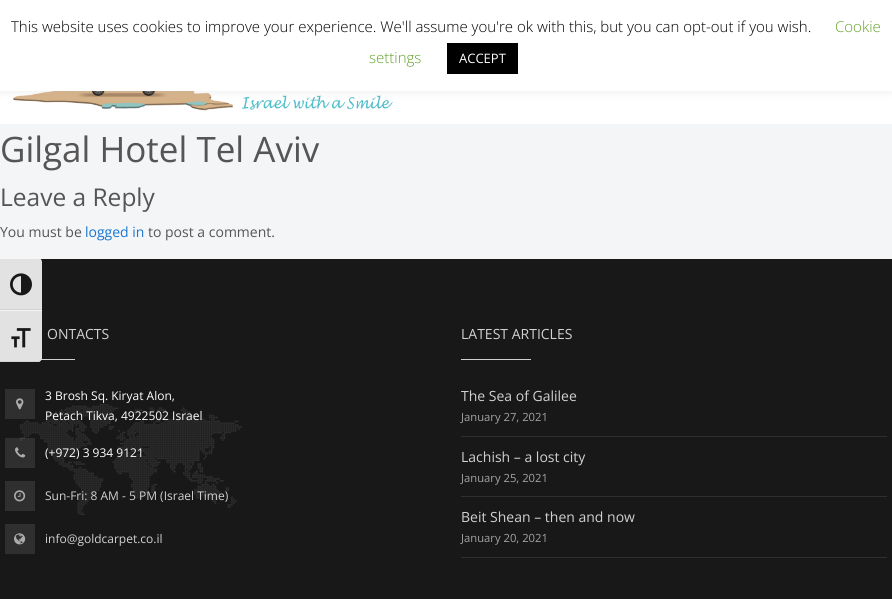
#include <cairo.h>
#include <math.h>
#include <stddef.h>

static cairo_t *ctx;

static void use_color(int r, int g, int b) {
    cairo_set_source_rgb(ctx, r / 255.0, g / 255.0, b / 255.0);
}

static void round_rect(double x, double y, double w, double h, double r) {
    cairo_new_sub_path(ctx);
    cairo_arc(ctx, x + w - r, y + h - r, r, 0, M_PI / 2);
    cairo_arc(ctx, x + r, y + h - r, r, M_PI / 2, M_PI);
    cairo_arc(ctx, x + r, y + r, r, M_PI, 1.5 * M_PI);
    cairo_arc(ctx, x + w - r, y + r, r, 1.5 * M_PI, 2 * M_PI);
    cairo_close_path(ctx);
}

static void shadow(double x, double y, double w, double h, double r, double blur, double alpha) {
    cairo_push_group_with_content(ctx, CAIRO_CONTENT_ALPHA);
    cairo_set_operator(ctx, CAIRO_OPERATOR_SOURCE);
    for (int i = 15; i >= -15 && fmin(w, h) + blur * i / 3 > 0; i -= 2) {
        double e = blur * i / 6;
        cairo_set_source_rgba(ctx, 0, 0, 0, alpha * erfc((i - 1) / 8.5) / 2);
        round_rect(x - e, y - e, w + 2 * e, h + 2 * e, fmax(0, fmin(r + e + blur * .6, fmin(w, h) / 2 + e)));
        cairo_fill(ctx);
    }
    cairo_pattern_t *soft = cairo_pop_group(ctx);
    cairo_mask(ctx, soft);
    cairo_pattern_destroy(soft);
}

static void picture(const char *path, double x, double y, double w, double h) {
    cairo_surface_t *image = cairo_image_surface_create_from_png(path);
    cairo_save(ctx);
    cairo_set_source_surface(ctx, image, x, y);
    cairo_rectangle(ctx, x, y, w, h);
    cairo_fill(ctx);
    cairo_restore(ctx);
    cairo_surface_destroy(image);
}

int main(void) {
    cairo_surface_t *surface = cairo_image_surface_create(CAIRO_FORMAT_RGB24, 892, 599);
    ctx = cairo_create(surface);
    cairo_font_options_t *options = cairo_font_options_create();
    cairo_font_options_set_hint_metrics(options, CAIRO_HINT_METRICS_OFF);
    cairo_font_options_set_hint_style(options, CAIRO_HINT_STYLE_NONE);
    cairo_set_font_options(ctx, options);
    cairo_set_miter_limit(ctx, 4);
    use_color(244, 245, 247);
    cairo_paint(ctx);
    use_color(255, 255, 255);
    cairo_rectangle(ctx, 0, 91, 892, 33);
    cairo_fill(ctx);
    picture("img1.png", 13, 91, 380, 20);
    use_color(172, 171, 171);
    shadow(0, -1, 892, 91, 0, 5, 0.3);
    use_color(255, 255, 255);
    cairo_rectangle(ctx, 0, 0, 892, 91);
    cairo_fill(ctx);
    cairo_select_font_face(ctx, "Open Sans Light", CAIRO_FONT_SLANT_NORMAL, CAIRO_FONT_WEIGHT_NORMAL);
    cairo_set_font_size(ctx, 15);
    use_color(0, 0, 0);
    cairo_move_to(ctx, 11, 32);
    cairo_show_text(ctx, "This website uses cookies to improve your experience. We'll assume you're ok with this, but you can opt-out if you wish.");
    use_color(98, 163, 41);
    cairo_move_to(ctx, 835, 32);
    cairo_show_text(ctx, "Cookie");
    cairo_move_to(ctx, 369, 63);
    cairo_show_text(ctx, "settings");
    use_color(0, 0, 0);
    cairo_rectangle(ctx, 447, 43, 71, 31);
    cairo_fill(ctx);
    cairo_select_font_face(ctx, "Open Sans", CAIRO_FONT_SLANT_NORMAL, CAIRO_FONT_WEIGHT_NORMAL);
    cairo_set_font_size(ctx, 13);
    use_color(255, 255, 255);
    cairo_move_to(ctx, 459, 63);
    cairo_show_text(ctx, "ACCEPT");
    cairo_set_font_size(ctx, 35);
    use_color(85, 85, 85);
    cairo_move_to(ctx, 0, 162);
    cairo_show_text(ctx, "Gilgal Hotel Tel Aviv");
    cairo_set_font_size(ctx, 24.5);
    cairo_move_to(ctx, 0, 206);
    cairo_show_text(ctx, "Leave a Reply");
    cairo_set_font_size(ctx, 14);
    cairo_move_to(ctx, 0, 237);
    cairo_show_text(ctx, "You must be");
    use_color(25, 118, 210);
    cairo_move_to(ctx, 85, 237);
    cairo_show_text(ctx, "logged in");
    use_color(85, 85, 85);
    cairo_move_to(ctx, 148, 237);
    cairo_show_text(ctx, "to post a comment.");
    use_color(24, 24, 25);
    cairo_rectangle(ctx, 0, 259, 892, 340);
    cairo_fill(ctx);
    use_color(209, 209, 209);
    cairo_move_to(ctx, 47, 339);
    cairo_show_text(ctx, "ONTACTS");
    cairo_rectangle(ctx, 41, 359, 34, 1);
    cairo_fill(ctx);
    picture("img2.png", 20, 404, 222, 111);
    use_color(47, 47, 48);
    cairo_rectangle(ctx, 5, 389, 30, 30);
    cairo_fill(ctx);
    picture("img3.png", 16, 398, 8, 12);
    cairo_set_font_size(ctx, 12);
    use_color(255, 255, 255);
    cairo_move_to(ctx, 45, 400);
    cairo_show_text(ctx, "3 Brosh Sq. Kiryat Alon,");
    cairo_move_to(ctx, 45, 420);
    cairo_show_text(ctx, "Petach Tikva, 4922502 Israel");
    cairo_set_source_rgba(ctx, 1, 1, 1, 0.1);
    cairo_rectangle(ctx, 5, 438, 30, 30);
    cairo_fill(ctx);
    picture("img4.png", 15, 447, 11, 11);
    use_color(255, 255, 255);
    cairo_move_to(ctx, 45, 457);
    cairo_show_text(ctx, "(+972) 3 934 9121");
    use_color(47, 47, 48);
    cairo_rectangle(ctx, 5, 481, 30, 30);
    cairo_fill(ctx);
    picture("img5.png", 14, 490, 12, 12);
    use_color(209, 209, 209);
    cairo_move_to(ctx, 45, 500);
    cairo_show_text(ctx, "Sun-Fri: 8 AM - 5 PM (Israel Time)");
    use_color(47, 47, 48);
    cairo_rectangle(ctx, 5, 524, 30, 30);
    cairo_fill(ctx);
    picture("img6.png", 14, 533, 12, 12);
    use_color(209, 209, 209);
    cairo_move_to(ctx, 45, 543);
    cairo_show_text(ctx, "info@goldcarpet.co.il");
    cairo_set_font_size(ctx, 14);
    cairo_move_to(ctx, 461, 339);
    cairo_show_text(ctx, "LATEST ARTICLES");
    cairo_rectangle(ctx, 461, 359, 70, 1);
    cairo_fill(ctx);
    cairo_move_to(ctx, 461, 401);
    cairo_show_text(ctx, "The Sea of Galilee");
    cairo_set_font_size(ctx, 11.25);
    use_color(163, 163, 163);
    cairo_move_to(ctx, 461, 421);
    cairo_show_text(ctx, "January 27, 2021");
    use_color(47, 47, 48);
    cairo_rectangle(ctx, 461, 436, 426, 1);
    cairo_fill(ctx);
    cairo_set_font_size(ctx, 14);
    use_color(209, 209, 209);
    cairo_move_to(ctx, 461, 462);
    cairo_show_text(ctx, "Lachish – a lost city");
    cairo_set_font_size(ctx, 11.25);
    use_color(163, 163, 163);
    cairo_move_to(ctx, 461, 482);
    cairo_show_text(ctx, "January 25, 2021");
    use_color(47, 47, 48);
    cairo_rectangle(ctx, 461, 496, 426, 1);
    cairo_fill(ctx);
    cairo_set_font_size(ctx, 14);
    use_color(209, 209, 209);
    cairo_move_to(ctx, 461, 522);
    cairo_show_text(ctx, "Beit Shean – then and now");
    cairo_set_font_size(ctx, 11.25);
    use_color(163, 163, 163);
    cairo_move_to(ctx, 461, 542);
    cairo_show_text(ctx, "January 20, 2021");
    use_color(47, 47, 48);
    cairo_rectangle(ctx, 461, 557, 426, 1);
    cairo_fill(ctx);
    use_color(226, 226, 226);
    cairo_new_path(ctx);
    cairo_move_to(ctx, 0, 258);
    cairo_line_to(ctx, 38, 258);
    cairo_curve_to(ctx, 40, 258, 42, 260, 42, 262);
    cairo_line_to(ctx, 42, 310);
    cairo_line_to(ctx, 0, 310);
    cairo_close_path(ctx);
    cairo_fill(ctx);
    use_color(245, 245, 245);
    cairo_new_path(ctx);
    cairo_move_to(ctx, 0, 258);
    cairo_line_to(ctx, 0, 259);
    cairo_line_to(ctx, 38, 259);
    cairo_curve_to(ctx, 40, 259, 42, 260, 42, 262);
    cairo_curve_to(ctx, 42, 260, 40, 258, 38, 258);
    cairo_close_path(ctx);
    cairo_fill(ctx);
    use_color(210, 210, 210);
    cairo_rectangle(ctx, 0, 309, 42, 1);
    cairo_fill(ctx);
    picture("img7.png", 10, 273, 22, 23);
    use_color(226, 226, 226);
    cairo_new_path(ctx);
    cairo_move_to(ctx, 0, 310);
    cairo_line_to(ctx, 42, 310);
    cairo_line_to(ctx, 42, 358);
    cairo_curve_to(ctx, 42, 360, 40, 362, 38, 362);
    cairo_line_to(ctx, 0, 362);
    cairo_close_path(ctx);
    cairo_fill(ctx);
    use_color(245, 245, 245);
    cairo_rectangle(ctx, 0, 310, 42, 1);
    cairo_fill(ctx);
    use_color(210, 210, 210);
    cairo_new_path(ctx);
    cairo_move_to(ctx, 0, 361);
    cairo_line_to(ctx, 0, 362);
    cairo_line_to(ctx, 38, 362);
    cairo_curve_to(ctx, 40, 362, 42, 360, 42, 358);
    cairo_curve_to(ctx, 42, 360, 40, 361, 38, 361);
    cairo_close_path(ctx);
    cairo_fill(ctx);
    picture("img8.png", 11, 328, 20, 20);
    cairo_surface_write_to_png(surface, "result.png");
    cairo_font_options_destroy(options);
    cairo_destroy(ctx);
    cairo_surface_destroy(surface);
    return 0;
}
